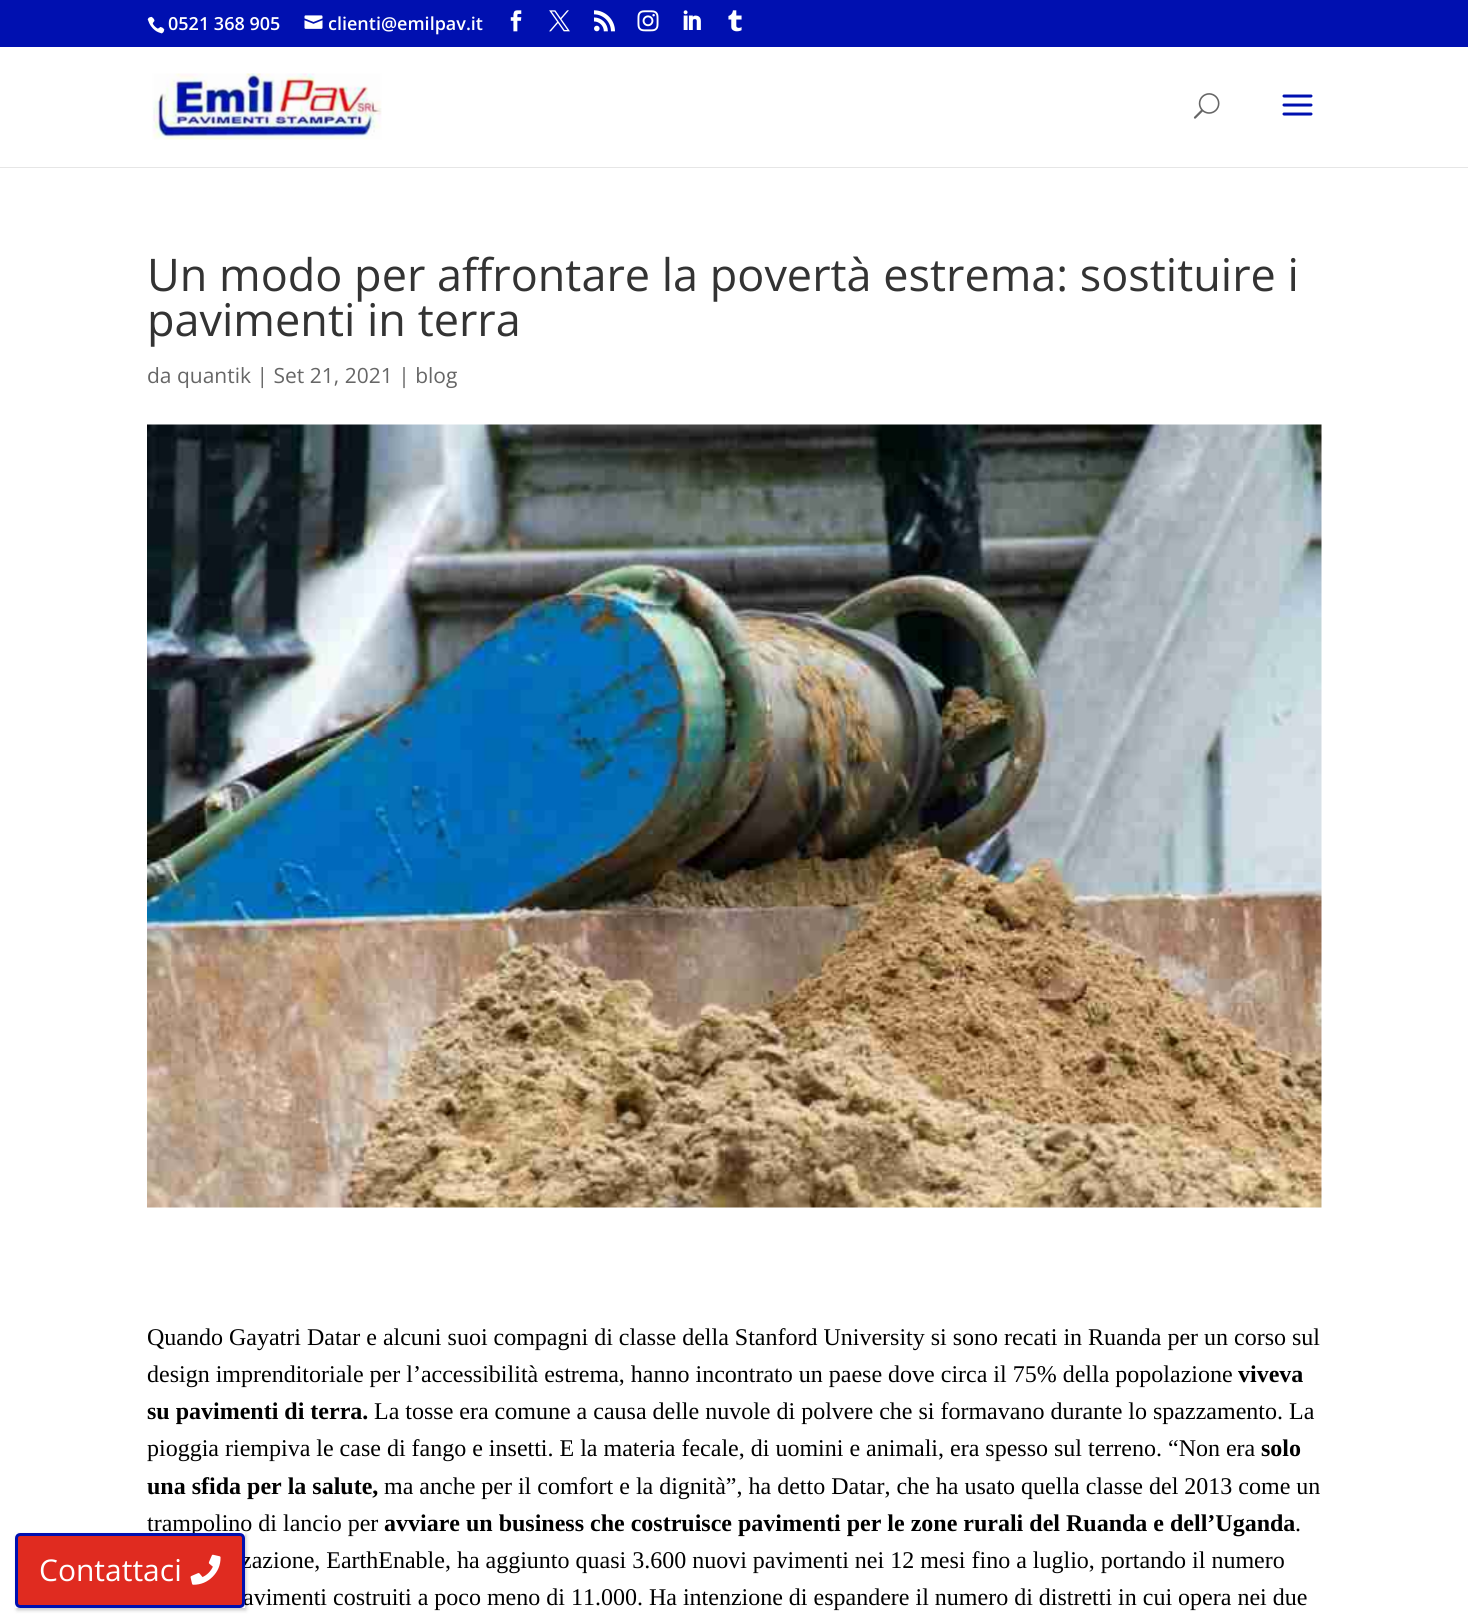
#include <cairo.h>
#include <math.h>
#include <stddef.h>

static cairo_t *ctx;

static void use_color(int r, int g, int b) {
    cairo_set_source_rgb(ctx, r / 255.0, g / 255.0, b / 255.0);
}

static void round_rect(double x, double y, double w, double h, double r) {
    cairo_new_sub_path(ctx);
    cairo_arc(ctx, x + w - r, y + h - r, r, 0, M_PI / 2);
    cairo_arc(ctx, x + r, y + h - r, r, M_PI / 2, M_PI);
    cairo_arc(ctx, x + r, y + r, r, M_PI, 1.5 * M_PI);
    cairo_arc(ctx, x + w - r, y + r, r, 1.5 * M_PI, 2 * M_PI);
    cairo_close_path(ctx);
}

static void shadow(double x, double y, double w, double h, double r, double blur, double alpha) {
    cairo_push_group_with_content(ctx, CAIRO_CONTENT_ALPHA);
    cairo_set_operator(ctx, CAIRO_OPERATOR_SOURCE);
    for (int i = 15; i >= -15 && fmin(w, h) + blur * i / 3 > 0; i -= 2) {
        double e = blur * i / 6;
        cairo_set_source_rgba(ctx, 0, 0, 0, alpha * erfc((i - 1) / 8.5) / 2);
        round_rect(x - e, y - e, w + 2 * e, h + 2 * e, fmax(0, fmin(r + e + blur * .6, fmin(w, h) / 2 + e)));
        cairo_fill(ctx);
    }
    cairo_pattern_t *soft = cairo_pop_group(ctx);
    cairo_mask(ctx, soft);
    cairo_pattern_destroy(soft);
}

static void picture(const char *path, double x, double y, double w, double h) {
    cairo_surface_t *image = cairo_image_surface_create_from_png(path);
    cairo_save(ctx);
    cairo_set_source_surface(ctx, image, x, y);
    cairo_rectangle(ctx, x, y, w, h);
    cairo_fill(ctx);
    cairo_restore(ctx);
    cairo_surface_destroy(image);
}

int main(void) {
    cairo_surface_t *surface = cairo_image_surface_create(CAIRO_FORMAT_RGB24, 1468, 1623);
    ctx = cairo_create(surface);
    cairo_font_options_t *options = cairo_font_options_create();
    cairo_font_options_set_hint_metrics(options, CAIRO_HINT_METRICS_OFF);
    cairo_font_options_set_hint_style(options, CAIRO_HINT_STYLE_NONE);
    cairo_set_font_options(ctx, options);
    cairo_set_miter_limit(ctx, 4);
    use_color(255, 255, 255);
    cairo_paint(ctx);
    use_color(2, 2, 2);
    shadow(17, 1535, 229, 75, 0, 2, 0.23);
    cairo_select_font_face(ctx, "Liberation Serif", CAIRO_FONT_SLANT_NORMAL, CAIRO_FONT_WEIGHT_NORMAL);
    cairo_set_font_size(ctx, 24);
    use_color(0, 0, 0);
    cairo_move_to(ctx, 147, 1531);
    cairo_show_text(ctx, "trampolino di lancio per");
    cairo_move_to(ctx, 241, 1568);
    cairo_show_text(ctx, "zazione, EarthEnable, ha aggiunto quasi 3.600 nuovi pavimenti nei 12 mesi fino a luglio, portando il numero");
    cairo_move_to(ctx, 243, 1605);
    cairo_show_text(ctx, "avimenti costruiti a poco meno di 11.000. Ha intenzione di espandere il numero di distretti in cui opera nei due");
    use_color(255, 255, 255);
    cairo_rectangle(ctx, 15, 1533, 230, 75);
    cairo_fill(ctx);
    use_color(224, 43, 32);
    round_rect(16.5, 1534.5, 227, 72, 3.5);
    cairo_fill_preserve(ctx);
    use_color(0, 16, 176);
    cairo_set_line_width(ctx, 3);
    cairo_stroke(ctx);
    cairo_select_font_face(ctx, "Open Sans", CAIRO_FONT_SLANT_NORMAL, CAIRO_FONT_WEIGHT_NORMAL);
    cairo_set_font_size(ctx, 30);
    use_color(255, 255, 255);
    cairo_move_to(ctx, 39, 1581);
    cairo_show_text(ctx, "Contattaci");
    picture("img1.png", 190, 1554, 31, 31);
    use_color(0, 16, 176);
    cairo_rectangle(ctx, 0, 0, 1468, 47);
    cairo_fill(ctx);
    picture("img2.png", 147, 16, 18, 18);
    cairo_select_font_face(ctx, "Open Sans SemiBold", CAIRO_FONT_SLANT_NORMAL, CAIRO_FONT_WEIGHT_NORMAL);
    cairo_set_font_size(ctx, 18);
    use_color(255, 255, 255);
    cairo_move_to(ctx, 168, 30);
    cairo_show_text(ctx, "0521 368 905");
    picture("img3.png", 304, 15, 19, 14);
    cairo_move_to(ctx, 328, 30);
    cairo_show_text(ctx, "clienti@emilpav.it");
    picture("img4.png", 510, 10, 12, 22);
    picture("img5.png", 549, 10, 21, 22);
    picture("img6.png", 594, 10, 21, 22);
    picture("img7.png", 637, 10, 22, 22);
    picture("img8.png", 683, 10, 18, 20);
    picture("img9.png", 728, 10, 14, 22);
    use_color(230, 230, 230);
    cairo_new_path(ctx);
    cairo_move_to(ctx, 0, 166);
    cairo_line_to(ctx, 0, 168);
    cairo_line_to(ctx, 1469, 168);
    cairo_line_to(ctx, 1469, 48);
    cairo_line_to(ctx, 1468, 48);
    cairo_line_to(ctx, 1468, 166);
    cairo_close_path(ctx);
    cairo_fill(ctx);
    use_color(255, 255, 255);
    cairo_rectangle(ctx, 0, 166, 1468, 1);
    cairo_fill(ctx);
    picture("img10.png", 152, 73, 230, 67);
    picture("img11.png", 1193, 93, 27, 26);
    picture("img12.png", 1282, 94, 31, 22);
    cairo_select_font_face(ctx, "Open Sans", CAIRO_FONT_SLANT_NORMAL, CAIRO_FONT_WEIGHT_NORMAL);
    cairo_set_font_size(ctx, 45);
    use_color(51, 51, 51);
    cairo_move_to(ctx, 147, 291);
    cairo_show_text(ctx, "Un modo per affrontare la povertà estrema: sostituire i");
    cairo_move_to(ctx, 147, 336);
    cairo_show_text(ctx, "pavimenti in terra");
    cairo_set_font_size(ctx, 21);
    use_color(102, 102, 102);
    cairo_move_to(ctx, 147, 383);
    cairo_show_text(ctx, "da quantik | Set 21, 2021 | blog");
    picture("img13.png", 147, 424, 1175, 784);
    cairo_select_font_face(ctx, "Liberation Serif", CAIRO_FONT_SLANT_NORMAL, CAIRO_FONT_WEIGHT_NORMAL);
    cairo_set_font_size(ctx, 24);
    use_color(0, 0, 0);
    cairo_move_to(ctx, 147, 1345);
    cairo_show_text(ctx, "Quando Gayatri Datar e alcuni suoi compagni di classe della Stanford University si sono recati in Ruanda per un corso sul");
    cairo_move_to(ctx, 147, 1382);
    cairo_show_text(ctx, "design imprenditoriale per l’accessibilità estrema, hanno incontrato un paese dove circa il 75% della popolazione");
    cairo_select_font_face(ctx, "Liberation Serif", CAIRO_FONT_SLANT_NORMAL, CAIRO_FONT_WEIGHT_BOLD);
    cairo_move_to(ctx, 1238, 1382);
    cairo_show_text(ctx, "viveva");
    cairo_move_to(ctx, 147, 1419);
    cairo_show_text(ctx, "su pavimenti di terra.");
    cairo_select_font_face(ctx, "Liberation Serif", CAIRO_FONT_SLANT_NORMAL, CAIRO_FONT_WEIGHT_NORMAL);
    cairo_move_to(ctx, 374, 1419);
    cairo_show_text(ctx, "La tosse era comune a causa delle nuvole di polvere che si formavano durante lo spazzamento. La");
    cairo_move_to(ctx, 147, 1456);
    cairo_show_text(ctx, "pioggia riempiva le case di fango e insetti. E la materia fecale, di uomini e animali, era spesso sul terreno. “Non era");
    cairo_select_font_face(ctx, "Liberation Serif", CAIRO_FONT_SLANT_NORMAL, CAIRO_FONT_WEIGHT_BOLD);
    cairo_move_to(ctx, 1261, 1456);
    cairo_show_text(ctx, "solo");
    cairo_move_to(ctx, 147, 1494);
    cairo_show_text(ctx, "una sfida per la salute,");
    cairo_select_font_face(ctx, "Liberation Serif", CAIRO_FONT_SLANT_NORMAL, CAIRO_FONT_WEIGHT_NORMAL);
    cairo_move_to(ctx, 384, 1494);
    cairo_show_text(ctx, "ma anche per il comfort e la dignità”, ha detto Datar, che ha usato quella classe del 2013 come un");
    cairo_select_font_face(ctx, "Liberation Serif", CAIRO_FONT_SLANT_NORMAL, CAIRO_FONT_WEIGHT_BOLD);
    cairo_move_to(ctx, 384, 1531);
    cairo_show_text(ctx, "avviare un business che costruisce pavimenti per le zone rurali del Ruanda e dell’Uganda");
    cairo_select_font_face(ctx, "Liberation Serif", CAIRO_FONT_SLANT_NORMAL, CAIRO_FONT_WEIGHT_NORMAL);
    cairo_move_to(ctx, 1295, 1531);
    cairo_show_text(ctx, ".");
    cairo_surface_write_to_png(surface, "result.png");
    cairo_font_options_destroy(options);
    cairo_destroy(ctx);
    cairo_surface_destroy(surface);
    return 0;
}
